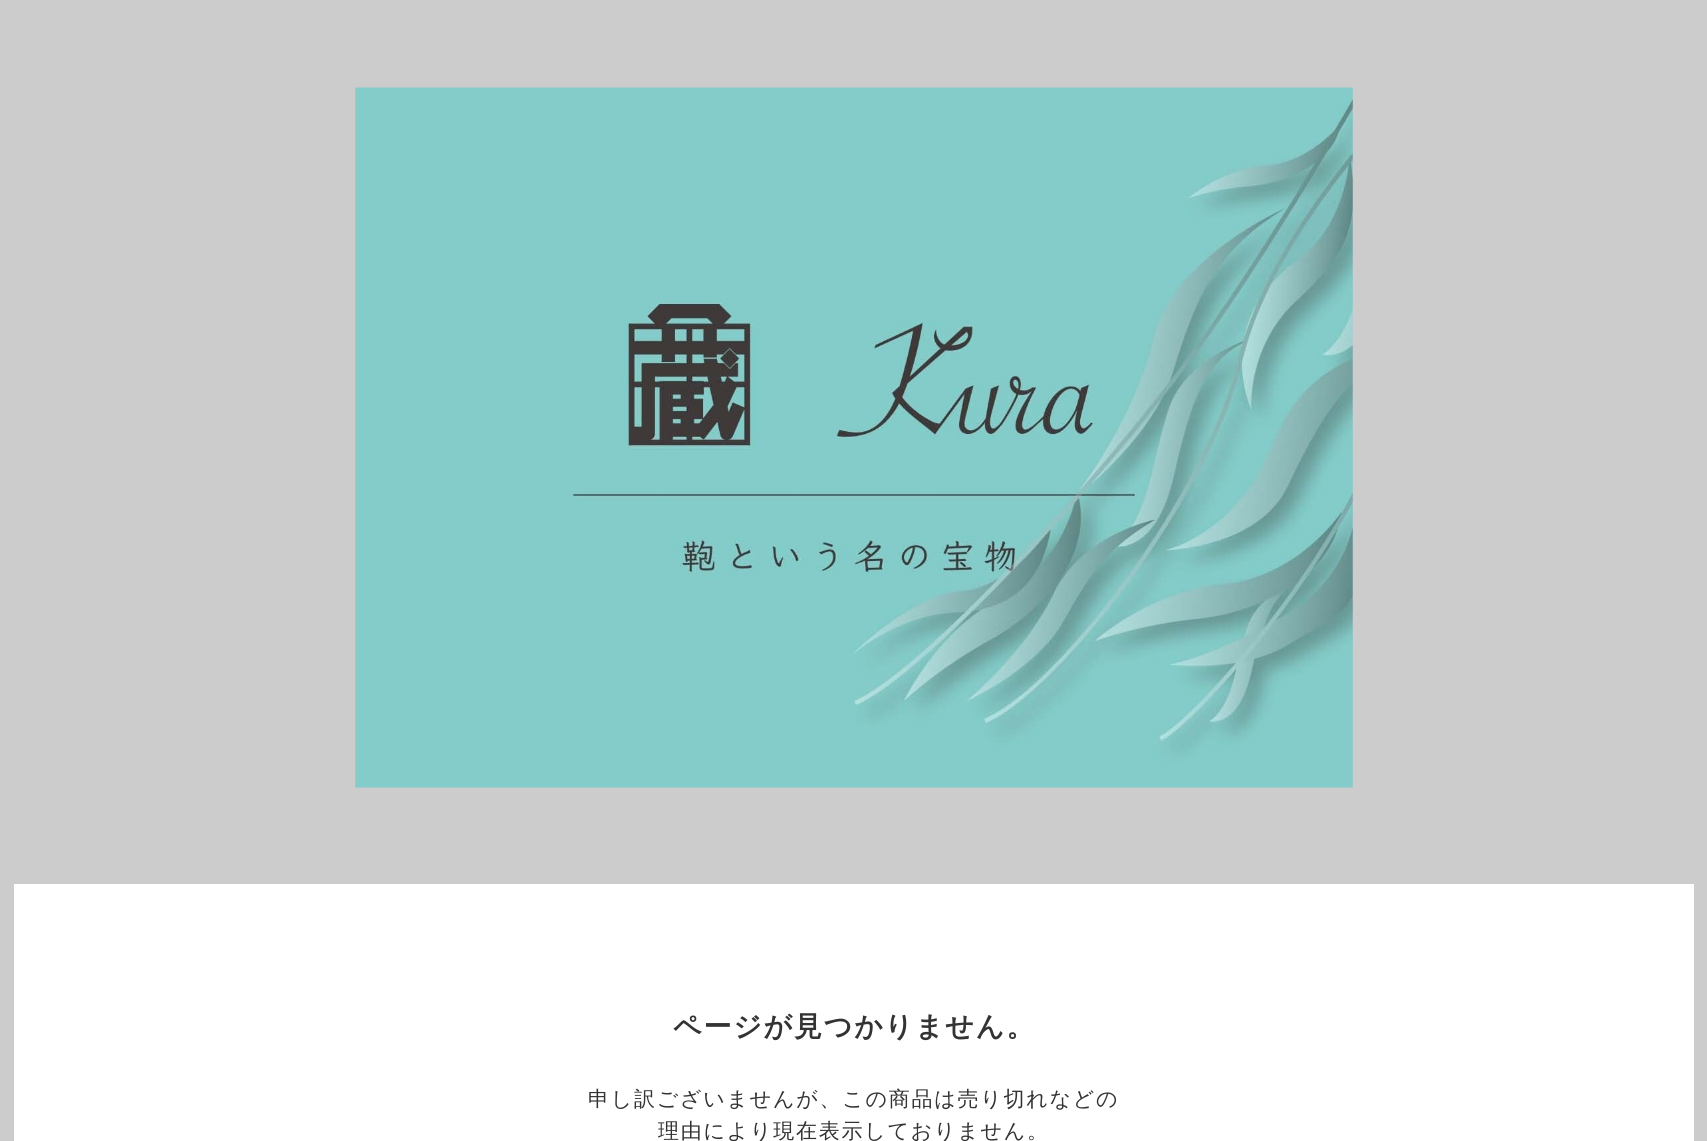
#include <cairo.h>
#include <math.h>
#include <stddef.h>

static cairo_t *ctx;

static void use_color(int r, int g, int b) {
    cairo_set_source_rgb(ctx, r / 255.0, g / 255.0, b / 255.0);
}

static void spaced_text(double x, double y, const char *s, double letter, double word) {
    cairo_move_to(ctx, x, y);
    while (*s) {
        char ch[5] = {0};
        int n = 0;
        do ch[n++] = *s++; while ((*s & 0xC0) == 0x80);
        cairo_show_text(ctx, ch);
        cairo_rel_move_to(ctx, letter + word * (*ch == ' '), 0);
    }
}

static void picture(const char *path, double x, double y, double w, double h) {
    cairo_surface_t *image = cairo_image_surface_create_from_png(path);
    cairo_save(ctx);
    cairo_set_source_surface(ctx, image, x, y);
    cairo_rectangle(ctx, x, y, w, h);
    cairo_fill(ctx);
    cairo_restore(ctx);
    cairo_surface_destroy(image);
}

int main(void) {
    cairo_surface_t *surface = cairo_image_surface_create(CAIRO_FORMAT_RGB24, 1707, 1141);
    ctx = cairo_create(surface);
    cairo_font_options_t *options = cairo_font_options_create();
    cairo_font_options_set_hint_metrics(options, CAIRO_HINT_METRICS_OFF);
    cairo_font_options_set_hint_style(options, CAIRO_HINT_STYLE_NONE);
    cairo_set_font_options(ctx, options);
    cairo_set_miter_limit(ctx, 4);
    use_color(204, 204, 204);
    cairo_paint(ctx);
    picture("img1.png", 355, 87, 998, 701);
    use_color(255, 255, 255);
    cairo_rectangle(ctx, 14, 884, 1680, 257);
    cairo_fill(ctx);
    cairo_select_font_face(ctx, "WenQuanYi Zen Hei", CAIRO_FONT_SLANT_NORMAL, CAIRO_FONT_WEIGHT_BOLD);
    cairo_set_font_size(ctx, 28);
    use_color(51, 51, 51);
    spaced_text(673, 1036, "ページが見つかりません。", 1.75, 0);
    cairo_select_font_face(ctx, "WenQuanYi Zen Hei Medium", CAIRO_FONT_SLANT_NORMAL, CAIRO_FONT_WEIGHT_NORMAL);
    cairo_set_font_size(ctx, 21);
    spaced_text(588, 1106, "申し訳ございませんが、この商品は売り切れなどの", 1.75, 0);
    spaced_text(658, 1138, "理由により現在表示しておりません。", 1.75, 0);
    cairo_surface_write_to_png(surface, "result.png");
    cairo_font_options_destroy(options);
    cairo_destroy(ctx);
    cairo_surface_destroy(surface);
    return 0;
}
